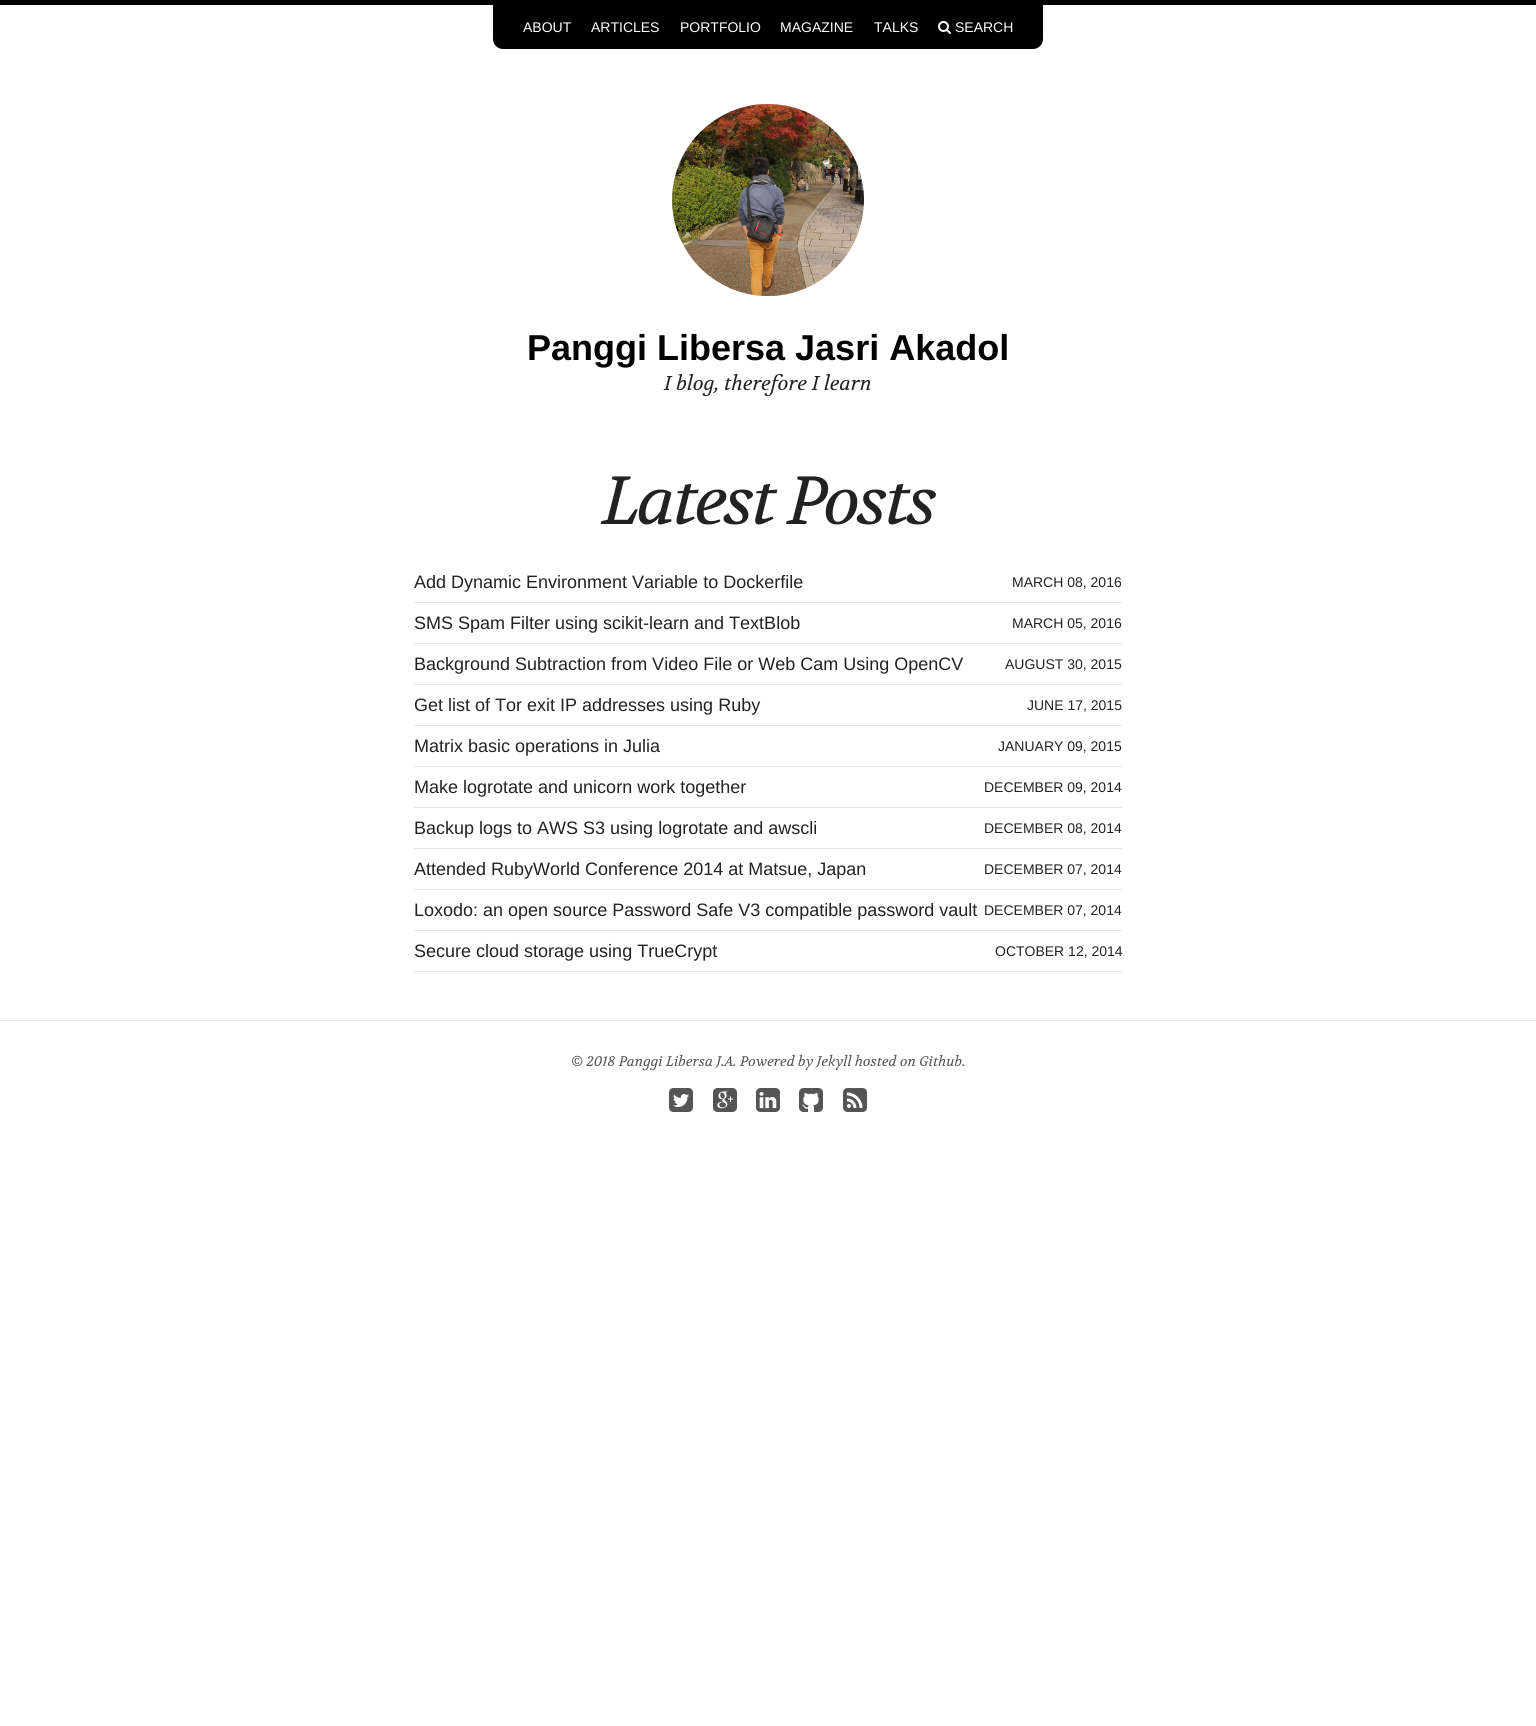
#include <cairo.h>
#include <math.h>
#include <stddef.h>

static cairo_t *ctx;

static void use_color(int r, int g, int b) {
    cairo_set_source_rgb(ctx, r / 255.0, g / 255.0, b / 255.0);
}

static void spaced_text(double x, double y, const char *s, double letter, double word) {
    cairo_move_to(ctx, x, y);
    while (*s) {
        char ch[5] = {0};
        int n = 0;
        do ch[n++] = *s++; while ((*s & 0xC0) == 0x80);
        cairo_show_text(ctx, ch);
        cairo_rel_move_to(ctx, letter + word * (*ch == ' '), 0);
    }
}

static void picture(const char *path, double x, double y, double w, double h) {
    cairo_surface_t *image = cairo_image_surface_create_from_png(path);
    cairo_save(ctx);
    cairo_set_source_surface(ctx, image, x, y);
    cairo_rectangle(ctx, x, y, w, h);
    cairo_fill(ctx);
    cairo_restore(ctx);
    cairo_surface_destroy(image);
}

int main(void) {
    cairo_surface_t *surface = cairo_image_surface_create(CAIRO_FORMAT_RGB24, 1536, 1726);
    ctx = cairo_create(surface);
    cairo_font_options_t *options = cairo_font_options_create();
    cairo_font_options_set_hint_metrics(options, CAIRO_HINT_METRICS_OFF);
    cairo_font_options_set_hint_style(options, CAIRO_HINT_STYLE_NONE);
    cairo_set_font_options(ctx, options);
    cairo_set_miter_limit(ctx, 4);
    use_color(255, 255, 255);
    cairo_paint(ctx);
    use_color(0, 0, 0);
    cairo_rectangle(ctx, 0, 0, 1536, 5);
    cairo_fill(ctx);
    cairo_new_path(ctx);
    cairo_move_to(ctx, 493, 5);
    cairo_line_to(ctx, 1043, 5);
    cairo_line_to(ctx, 1043, 39);
    cairo_curve_to(ctx, 1043, 44.5, 1038.5, 49, 1033, 49);
    cairo_line_to(ctx, 503, 49);
    cairo_curve_to(ctx, 497.5, 49, 493, 44.5, 493, 39);
    cairo_close_path(ctx);
    cairo_fill(ctx);
    cairo_select_font_face(ctx, "Liberation Sans", CAIRO_FONT_SLANT_NORMAL, CAIRO_FONT_WEIGHT_NORMAL);
    cairo_set_font_size(ctx, 14);
    use_color(255, 255, 255);
    cairo_move_to(ctx, 523, 32);
    cairo_show_text(ctx, "ABOUT");
    cairo_move_to(ctx, 591, 32);
    cairo_show_text(ctx, "ARTICLES");
    cairo_move_to(ctx, 680, 32);
    cairo_show_text(ctx, "PORTFOLIO");
    cairo_move_to(ctx, 780, 32);
    cairo_show_text(ctx, "MAGAZINE");
    cairo_move_to(ctx, 874, 32);
    cairo_show_text(ctx, "TALKS");
    picture("img1.png", 938, 21, 13, 13);
    cairo_move_to(ctx, 955, 32);
    cairo_show_text(ctx, "SEARCH");
    picture("img2.png", 672, 104, 192, 192);
    cairo_select_font_face(ctx, "Liberation Sans", CAIRO_FONT_SLANT_NORMAL, CAIRO_FONT_WEIGHT_BOLD);
    cairo_set_font_size(ctx, 36);
    use_color(0, 0, 0);
    cairo_move_to(ctx, 527, 360);
    cairo_show_text(ctx, "Panggi Libersa Jasri Akadol");
    cairo_select_font_face(ctx, "Volkhov", CAIRO_FONT_SLANT_ITALIC, CAIRO_FONT_WEIGHT_NORMAL);
    cairo_set_font_size(ctx, 20);
    use_color(34, 34, 34);
    cairo_move_to(ctx, 664, 390);
    cairo_show_text(ctx, "I blog, therefore I learn");
    use_color(230, 230, 230);
    cairo_rectangle(ctx, 0, 1020, 1536, 1);
    cairo_fill(ctx);
    cairo_set_font_size(ctx, 68);
    use_color(34, 34, 34);
    spaced_text(602, 524, "Latest Posts", -3, 0);
    use_color(230, 230, 230);
    cairo_rectangle(ctx, 414, 602, 708, 1);
    cairo_fill(ctx);
    cairo_select_font_face(ctx, "Liberation Sans", CAIRO_FONT_SLANT_NORMAL, CAIRO_FONT_WEIGHT_NORMAL);
    cairo_set_font_size(ctx, 18);
    use_color(34, 34, 34);
    cairo_move_to(ctx, 414, 588);
    cairo_show_text(ctx, "Add Dynamic Environment Variable to Dockerfile");
    cairo_set_font_size(ctx, 14);
    cairo_move_to(ctx, 1012, 587);
    cairo_show_text(ctx, "MARCH 08, 2016");
    use_color(230, 230, 230);
    cairo_rectangle(ctx, 414, 643, 708, 1);
    cairo_fill(ctx);
    cairo_set_font_size(ctx, 18);
    use_color(34, 34, 34);
    cairo_move_to(ctx, 414, 629);
    cairo_show_text(ctx, "SMS Spam Filter using scikit-learn and TextBlob");
    cairo_set_font_size(ctx, 14);
    cairo_move_to(ctx, 1012, 628);
    cairo_show_text(ctx, "MARCH 05, 2016");
    use_color(230, 230, 230);
    cairo_rectangle(ctx, 414, 684, 708, 1);
    cairo_fill(ctx);
    cairo_set_font_size(ctx, 18);
    use_color(34, 34, 34);
    cairo_move_to(ctx, 414, 670);
    cairo_show_text(ctx, "Background Subtraction from Video File or Web Cam Using OpenCV");
    cairo_set_font_size(ctx, 14);
    cairo_move_to(ctx, 1005, 669);
    cairo_show_text(ctx, "AUGUST 30, 2015");
    use_color(230, 230, 230);
    cairo_rectangle(ctx, 414, 725, 708, 1);
    cairo_fill(ctx);
    cairo_set_font_size(ctx, 18);
    use_color(34, 34, 34);
    cairo_move_to(ctx, 414, 711);
    cairo_show_text(ctx, "Get list of Tor exit IP addresses using Ruby");
    cairo_set_font_size(ctx, 14);
    cairo_move_to(ctx, 1027, 710);
    cairo_show_text(ctx, "JUNE 17, 2015");
    use_color(230, 230, 230);
    cairo_rectangle(ctx, 414, 766, 708, 1);
    cairo_fill(ctx);
    cairo_set_font_size(ctx, 18);
    use_color(34, 34, 34);
    cairo_move_to(ctx, 414, 752);
    cairo_show_text(ctx, "Matrix basic operations in Julia");
    cairo_set_font_size(ctx, 14);
    cairo_move_to(ctx, 998, 751);
    cairo_show_text(ctx, "JANUARY 09, 2015");
    use_color(230, 230, 230);
    cairo_rectangle(ctx, 414, 807, 708, 1);
    cairo_fill(ctx);
    cairo_set_font_size(ctx, 18);
    use_color(34, 34, 34);
    cairo_move_to(ctx, 414, 793);
    cairo_show_text(ctx, "Make logrotate and unicorn work together");
    cairo_set_font_size(ctx, 14);
    cairo_move_to(ctx, 984, 792);
    cairo_show_text(ctx, "DECEMBER 09, 2014");
    use_color(230, 230, 230);
    cairo_rectangle(ctx, 414, 848, 708, 1);
    cairo_fill(ctx);
    cairo_set_font_size(ctx, 18);
    use_color(34, 34, 34);
    cairo_move_to(ctx, 414, 834);
    cairo_show_text(ctx, "Backup logs to AWS S3 using logrotate and awscli");
    cairo_set_font_size(ctx, 14);
    cairo_move_to(ctx, 984, 833);
    cairo_show_text(ctx, "DECEMBER 08, 2014");
    use_color(230, 230, 230);
    cairo_rectangle(ctx, 414, 889, 708, 1);
    cairo_fill(ctx);
    cairo_set_font_size(ctx, 18);
    use_color(34, 34, 34);
    cairo_move_to(ctx, 414, 875);
    cairo_show_text(ctx, "Attended RubyWorld Conference 2014 at Matsue, Japan");
    cairo_set_font_size(ctx, 14);
    cairo_move_to(ctx, 984, 874);
    cairo_show_text(ctx, "DECEMBER 07, 2014");
    use_color(230, 230, 230);
    cairo_rectangle(ctx, 414, 930, 708, 1);
    cairo_fill(ctx);
    cairo_set_font_size(ctx, 18);
    use_color(34, 34, 34);
    cairo_move_to(ctx, 414, 916);
    cairo_show_text(ctx, "Loxodo: an open source Password Safe V3 compatible password vault");
    cairo_set_font_size(ctx, 14);
    cairo_move_to(ctx, 984, 915);
    cairo_show_text(ctx, "DECEMBER 07, 2014");
    use_color(230, 230, 230);
    cairo_rectangle(ctx, 414, 971, 708, 1);
    cairo_fill(ctx);
    cairo_set_font_size(ctx, 18);
    use_color(34, 34, 34);
    cairo_move_to(ctx, 414, 957);
    cairo_show_text(ctx, "Secure cloud storage using TrueCrypt");
    cairo_set_font_size(ctx, 14);
    cairo_move_to(ctx, 995, 956);
    cairo_show_text(ctx, "OCTOBER 12, 2014");
    cairo_select_font_face(ctx, "Volkhov", CAIRO_FONT_SLANT_ITALIC, CAIRO_FONT_WEIGHT_NORMAL);
    use_color(85, 85, 85);
    cairo_move_to(ctx, 571, 1066);
    cairo_show_text(ctx, "© 2018 Panggi Libersa J.A. Powered by Jekyll hosted on Github.");
    picture("img3.png", 669, 1088, 24, 24);
    picture("img4.png", 713, 1088, 24, 24);
    picture("img5.png", 756, 1088, 24, 24);
    picture("img6.png", 799, 1088, 24, 24);
    picture("img7.png", 843, 1088, 24, 24);
    cairo_surface_write_to_png(surface, "result.png");
    cairo_font_options_destroy(options);
    cairo_destroy(ctx);
    cairo_surface_destroy(surface);
    return 0;
}
